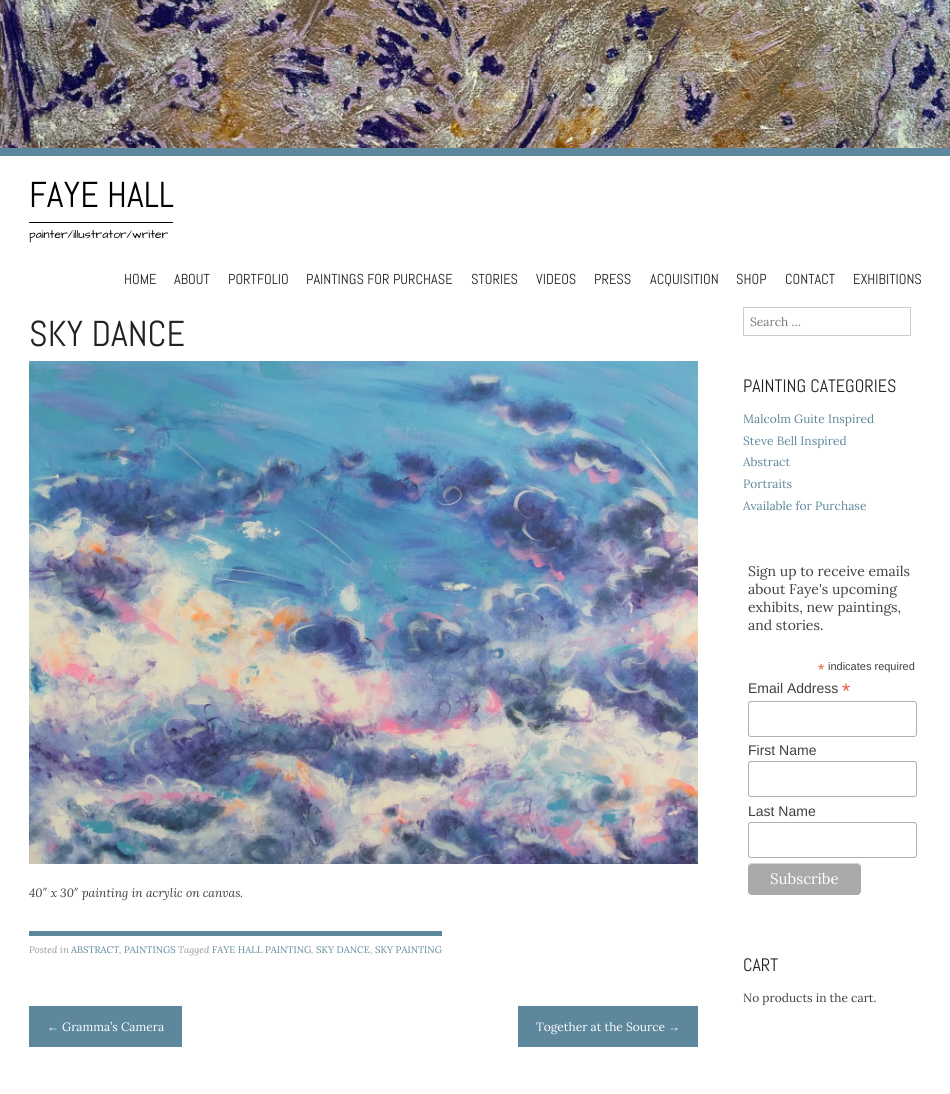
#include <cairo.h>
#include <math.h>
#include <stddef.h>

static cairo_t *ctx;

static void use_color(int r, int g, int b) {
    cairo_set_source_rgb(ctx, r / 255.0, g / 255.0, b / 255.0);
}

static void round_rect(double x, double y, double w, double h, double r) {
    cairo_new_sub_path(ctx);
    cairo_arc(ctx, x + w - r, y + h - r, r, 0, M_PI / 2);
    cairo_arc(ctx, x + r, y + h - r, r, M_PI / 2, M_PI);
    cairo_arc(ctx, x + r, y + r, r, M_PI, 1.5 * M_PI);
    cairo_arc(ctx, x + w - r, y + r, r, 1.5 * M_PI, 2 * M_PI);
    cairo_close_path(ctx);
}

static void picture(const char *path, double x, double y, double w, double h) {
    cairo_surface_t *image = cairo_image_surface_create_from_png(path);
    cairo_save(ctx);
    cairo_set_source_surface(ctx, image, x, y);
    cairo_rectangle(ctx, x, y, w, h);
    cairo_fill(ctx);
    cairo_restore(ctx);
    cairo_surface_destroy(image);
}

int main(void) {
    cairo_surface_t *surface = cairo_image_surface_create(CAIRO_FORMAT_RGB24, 950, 1094);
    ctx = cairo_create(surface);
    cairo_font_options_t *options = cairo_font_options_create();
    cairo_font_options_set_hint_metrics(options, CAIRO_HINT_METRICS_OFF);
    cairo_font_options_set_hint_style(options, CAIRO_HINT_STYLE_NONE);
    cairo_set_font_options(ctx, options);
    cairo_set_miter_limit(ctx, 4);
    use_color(255, 255, 255);
    cairo_paint(ctx);
    picture("img1.png", 0, 0, 950, 148);
    use_color(93, 135, 156);
    cairo_rectangle(ctx, 0, 148, 950, 8);
    cairo_fill(ctx);
    use_color(0, 0, 0);
    cairo_rectangle(ctx, 29, 222, 144, 1);
    cairo_fill(ctx);
    cairo_select_font_face(ctx, "Abel", CAIRO_FONT_SLANT_NORMAL, CAIRO_FONT_WEIGHT_NORMAL);
    cairo_set_font_size(ctx, 36);
    cairo_move_to(ctx, 29, 207);
    cairo_show_text(ctx, "FAYE HALL");
    cairo_select_font_face(ctx, "Architects Daughter", CAIRO_FONT_SLANT_NORMAL, CAIRO_FONT_WEIGHT_NORMAL);
    cairo_set_font_size(ctx, 12);
    cairo_move_to(ctx, 29, 238);
    cairo_show_text(ctx, "painter/illustrator/writer");
    cairo_select_font_face(ctx, "Abel", CAIRO_FONT_SLANT_NORMAL, CAIRO_FONT_WEIGHT_NORMAL);
    cairo_set_font_size(ctx, 14.4);
    use_color(34, 34, 34);
    cairo_move_to(ctx, 124, 284);
    cairo_show_text(ctx, "HOME");
    cairo_move_to(ctx, 174, 284);
    cairo_show_text(ctx, "ABOUT");
    cairo_move_to(ctx, 228, 284);
    cairo_show_text(ctx, "PORTFOLIO");
    cairo_move_to(ctx, 306, 284);
    cairo_show_text(ctx, "PAINTINGS FOR PURCHASE");
    cairo_move_to(ctx, 471, 284);
    cairo_show_text(ctx, "STORIES");
    cairo_move_to(ctx, 536, 284);
    cairo_show_text(ctx, "VIDEOS");
    cairo_move_to(ctx, 594, 284);
    cairo_show_text(ctx, "PRESS");
    cairo_move_to(ctx, 650, 284);
    cairo_show_text(ctx, "ACQUISITION");
    cairo_move_to(ctx, 736, 284);
    cairo_show_text(ctx, "SHOP");
    cairo_move_to(ctx, 785, 284);
    cairo_show_text(ctx, "CONTACT");
    cairo_move_to(ctx, 853, 284);
    cairo_show_text(ctx, "EXHIBITIONS");
    cairo_set_font_size(ctx, 36);
    cairo_move_to(ctx, 29, 346);
    cairo_show_text(ctx, "SKY DANCE");
    picture("img2.png", 29, 361, 669, 503);
    cairo_select_font_face(ctx, "Lora", CAIRO_FONT_SLANT_ITALIC, CAIRO_FONT_WEIGHT_NORMAL);
    cairo_set_font_size(ctx, 12);
    use_color(64, 64, 64);
    cairo_move_to(ctx, 29, 897);
    cairo_show_text(ctx, "40″ x 30″ painting in acrylic on canvas.");
    use_color(93, 135, 156);
    cairo_rectangle(ctx, 29, 931, 413, 5);
    cairo_fill(ctx);
    cairo_set_font_size(ctx, 9.6);
    use_color(153, 153, 153);
    cairo_move_to(ctx, 29, 953);
    cairo_show_text(ctx, "Posted in");
    cairo_select_font_face(ctx, "Lora", CAIRO_FONT_SLANT_NORMAL, CAIRO_FONT_WEIGHT_NORMAL);
    use_color(93, 135, 156);
    cairo_move_to(ctx, 71, 953);
    cairo_show_text(ctx, "ABSTRACT");
    cairo_move_to(ctx, 124, 953);
    cairo_show_text(ctx, "PAINTINGS");
    cairo_select_font_face(ctx, "Lora", CAIRO_FONT_SLANT_ITALIC, CAIRO_FONT_WEIGHT_NORMAL);
    use_color(153, 153, 153);
    cairo_move_to(ctx, 178, 953);
    cairo_show_text(ctx, "Tagged");
    cairo_select_font_face(ctx, "Lora", CAIRO_FONT_SLANT_NORMAL, CAIRO_FONT_WEIGHT_NORMAL);
    use_color(93, 135, 156);
    cairo_move_to(ctx, 212, 953);
    cairo_show_text(ctx, "FAYE HALL PAINTING");
    cairo_move_to(ctx, 316, 953);
    cairo_show_text(ctx, "SKY DANCE");
    cairo_move_to(ctx, 375, 953);
    cairo_show_text(ctx, "SKY PAINTING");
    cairo_select_font_face(ctx, "Lora", CAIRO_FONT_SLANT_ITALIC, CAIRO_FONT_WEIGHT_NORMAL);
    use_color(153, 153, 153);
    cairo_move_to(ctx, 119, 953);
    cairo_show_text(ctx, ",");
    cairo_move_to(ctx, 311, 953);
    cairo_show_text(ctx, ",");
    cairo_move_to(ctx, 370, 953);
    cairo_show_text(ctx, ",");
    use_color(93, 135, 156);
    cairo_rectangle(ctx, 29, 1006, 153, 41);
    cairo_fill(ctx);
    cairo_select_font_face(ctx, "Liberation Serif", CAIRO_FONT_SLANT_NORMAL, CAIRO_FONT_WEIGHT_NORMAL);
    cairo_set_font_size(ctx, 12);
    use_color(255, 255, 255);
    cairo_move_to(ctx, 47, 1031);
    cairo_show_text(ctx, "←");
    cairo_select_font_face(ctx, "Lora", CAIRO_FONT_SLANT_NORMAL, CAIRO_FONT_WEIGHT_NORMAL);
    cairo_move_to(ctx, 62, 1031);
    cairo_show_text(ctx, "Gramma’s Camera");
    use_color(93, 135, 156);
    cairo_rectangle(ctx, 518, 1006, 180, 41);
    cairo_fill(ctx);
    use_color(255, 255, 255);
    cairo_move_to(ctx, 536, 1031);
    cairo_show_text(ctx, "Together at the Source");
    cairo_select_font_face(ctx, "Liberation Serif", CAIRO_FONT_SLANT_NORMAL, CAIRO_FONT_WEIGHT_NORMAL);
    cairo_move_to(ctx, 668, 1031);
    cairo_show_text(ctx, "→");
    cairo_rectangle(ctx, 743.5, 307.5, 167, 28);
    use_color(204, 204, 204);
    cairo_set_line_width(ctx, 1);
    cairo_stroke(ctx);
    cairo_select_font_face(ctx, "Lora", CAIRO_FONT_SLANT_NORMAL, CAIRO_FONT_WEIGHT_NORMAL);
    use_color(117, 117, 117);
    cairo_move_to(ctx, 750, 326);
    cairo_show_text(ctx, "Search …");
    cairo_select_font_face(ctx, "Abel", CAIRO_FONT_SLANT_NORMAL, CAIRO_FONT_WEIGHT_NORMAL);
    cairo_set_font_size(ctx, 18);
    use_color(34, 34, 34);
    cairo_move_to(ctx, 743, 392);
    cairo_show_text(ctx, "PAINTING CATEGORIES");
    cairo_select_font_face(ctx, "Lora", CAIRO_FONT_SLANT_NORMAL, CAIRO_FONT_WEIGHT_NORMAL);
    cairo_set_font_size(ctx, 12);
    use_color(93, 135, 156);
    cairo_move_to(ctx, 743, 423);
    cairo_show_text(ctx, "Malcolm Guite Inspired");
    cairo_move_to(ctx, 743, 445);
    cairo_show_text(ctx, "Steve Bell Inspired");
    cairo_move_to(ctx, 743, 466);
    cairo_show_text(ctx, "Abstract");
    cairo_move_to(ctx, 743, 488);
    cairo_show_text(ctx, "Portraits");
    cairo_move_to(ctx, 743, 510);
    cairo_show_text(ctx, "Available for Purchase");
    cairo_set_font_size(ctx, 14);
    use_color(64, 64, 64);
    cairo_move_to(ctx, 748, 576);
    cairo_show_text(ctx, "Sign up to receive emails");
    cairo_move_to(ctx, 748, 594);
    cairo_show_text(ctx, "about Faye's upcoming");
    cairo_move_to(ctx, 748, 612);
    cairo_show_text(ctx, "exhibits, new paintings,");
    cairo_move_to(ctx, 748, 630);
    cairo_show_text(ctx, "and stories.");
    cairo_select_font_face(ctx, "Liberation Sans", CAIRO_FONT_SLANT_NORMAL, CAIRO_FONT_WEIGHT_NORMAL);
    cairo_set_font_size(ctx, 16);
    use_color(232, 92, 65);
    cairo_move_to(ctx, 818, 675);
    cairo_show_text(ctx, "*");
    cairo_set_font_size(ctx, 11);
    use_color(64, 64, 64);
    cairo_move_to(ctx, 828, 670);
    cairo_show_text(ctx, "indicates required");
    cairo_set_font_size(ctx, 14);
    cairo_move_to(ctx, 748, 693);
    cairo_show_text(ctx, "Email Address");
    cairo_set_font_size(ctx, 21);
    use_color(232, 92, 65);
    cairo_move_to(ctx, 842, 698);
    cairo_show_text(ctx, "*");
    round_rect(748.5, 701.5, 168, 35, 2.5);
    use_color(171, 176, 178);
    cairo_stroke(ctx);
    cairo_set_font_size(ctx, 14);
    use_color(64, 64, 64);
    cairo_move_to(ctx, 748, 755);
    cairo_show_text(ctx, "First Name");
    round_rect(748.5, 761.5, 168, 35, 2.5);
    use_color(171, 176, 178);
    cairo_stroke(ctx);
    use_color(64, 64, 64);
    cairo_move_to(ctx, 748, 816);
    cairo_show_text(ctx, "Last Name");
    round_rect(748.5, 822.5, 168, 35, 2.5);
    use_color(171, 176, 178);
    cairo_stroke(ctx);
    use_color(170, 170, 170);
    round_rect(748, 863, 113, 32, 4);
    cairo_fill(ctx);
    cairo_set_source_rgba(ctx, 1, 1, 1, 0.5);
    cairo_new_path(ctx);
    cairo_move_to(ctx, 752, 864);
    cairo_line_to(ctx, 857, 864);
    cairo_curve_to(ctx, 859, 864, 861, 866, 861, 868);
    cairo_curve_to(ctx, 861, 858, 843, 863, 840, 863);
    cairo_line_to(ctx, 770, 863);
    cairo_curve_to(ctx, 766, 863, 748, 858, 748, 868);
    cairo_curve_to(ctx, 748, 866, 750, 864, 752, 864);
    cairo_close_path(ctx);
    cairo_fill(ctx);
    cairo_select_font_face(ctx, "Lora", CAIRO_FONT_SLANT_NORMAL, CAIRO_FONT_WEIGHT_NORMAL);
    cairo_set_font_size(ctx, 15);
    use_color(255, 255, 255);
    cairo_move_to(ctx, 770, 884);
    cairo_show_text(ctx, "Subscribe");
    cairo_select_font_face(ctx, "Abel", CAIRO_FONT_SLANT_NORMAL, CAIRO_FONT_WEIGHT_NORMAL);
    cairo_set_font_size(ctx, 18);
    use_color(34, 34, 34);
    cairo_move_to(ctx, 743, 971);
    cairo_show_text(ctx, "CART");
    cairo_select_font_face(ctx, "Lora", CAIRO_FONT_SLANT_NORMAL, CAIRO_FONT_WEIGHT_NORMAL);
    cairo_set_font_size(ctx, 12);
    use_color(64, 64, 64);
    cairo_move_to(ctx, 743, 1002);
    cairo_show_text(ctx, "No products in the cart.");
    cairo_surface_write_to_png(surface, "result.png");
    cairo_font_options_destroy(options);
    cairo_destroy(ctx);
    cairo_surface_destroy(surface);
    return 0;
}
